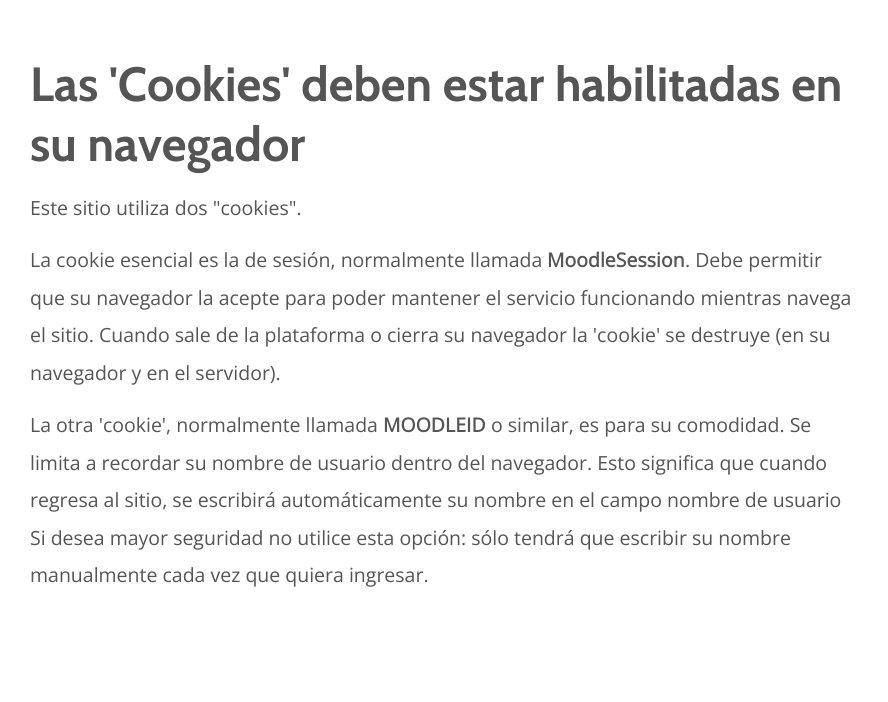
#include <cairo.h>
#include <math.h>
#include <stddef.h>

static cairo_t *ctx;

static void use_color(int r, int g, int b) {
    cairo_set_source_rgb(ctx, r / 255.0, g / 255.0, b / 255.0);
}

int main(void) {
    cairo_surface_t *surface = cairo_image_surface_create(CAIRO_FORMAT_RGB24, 888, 702);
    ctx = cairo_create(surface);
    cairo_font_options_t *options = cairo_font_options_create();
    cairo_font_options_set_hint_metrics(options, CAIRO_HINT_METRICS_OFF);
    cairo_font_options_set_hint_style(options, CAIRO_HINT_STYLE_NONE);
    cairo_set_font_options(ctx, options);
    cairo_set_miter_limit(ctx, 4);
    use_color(255, 255, 255);
    cairo_paint(ctx);
    cairo_select_font_face(ctx, "Cabin", CAIRO_FONT_SLANT_NORMAL, CAIRO_FONT_WEIGHT_BOLD);
    cairo_set_font_size(ctx, 48);
    use_color(85, 85, 85);
    cairo_move_to(ctx, 30, 101);
    cairo_show_text(ctx, "Las 'Cookies' deben estar habilitadas en");
    cairo_move_to(ctx, 30, 161);
    cairo_show_text(ctx, "su navegador");
    cairo_select_font_face(ctx, "Open Sans", CAIRO_FONT_SLANT_NORMAL, CAIRO_FONT_WEIGHT_NORMAL);
    cairo_set_font_size(ctx, 19.5);
    cairo_move_to(ctx, 30, 215);
    cairo_show_text(ctx, "Este sitio utiliza dos \"cookies\".");
    cairo_move_to(ctx, 30, 267);
    cairo_show_text(ctx, "La cookie esencial es la de sesión, normalmente llamada");
    cairo_select_font_face(ctx, "Open Sans", CAIRO_FONT_SLANT_NORMAL, CAIRO_FONT_WEIGHT_BOLD);
    cairo_move_to(ctx, 547, 267);
    cairo_show_text(ctx, "MoodleSession");
    cairo_select_font_face(ctx, "Open Sans", CAIRO_FONT_SLANT_NORMAL, CAIRO_FONT_WEIGHT_NORMAL);
    cairo_move_to(ctx, 685, 267);
    cairo_show_text(ctx, ". Debe permitir");
    cairo_move_to(ctx, 30, 305);
    cairo_show_text(ctx, "que su navegador la acepte para poder mantener el servicio funcionando mientras navega");
    cairo_move_to(ctx, 30, 342);
    cairo_show_text(ctx, "el sitio. Cuando sale de la plataforma o cierra su navegador la 'cookie' se destruye (en su");
    cairo_move_to(ctx, 30, 380);
    cairo_show_text(ctx, "navegador y en el servidor).");
    cairo_move_to(ctx, 30, 432);
    cairo_show_text(ctx, "La otra 'cookie', normalmente llamada");
    cairo_select_font_face(ctx, "Open Sans", CAIRO_FONT_SLANT_NORMAL, CAIRO_FONT_WEIGHT_BOLD);
    cairo_move_to(ctx, 383, 432);
    cairo_show_text(ctx, "MOODLEID");
    cairo_select_font_face(ctx, "Open Sans", CAIRO_FONT_SLANT_NORMAL, CAIRO_FONT_WEIGHT_NORMAL);
    cairo_move_to(ctx, 491, 432);
    cairo_show_text(ctx, "o similar, es para su comodidad. Se");
    cairo_move_to(ctx, 30, 470);
    cairo_show_text(ctx, "limita a recordar su nombre de usuario dentro del navegador. Esto significa que cuando");
    cairo_move_to(ctx, 30, 507);
    cairo_show_text(ctx, "regresa al sitio, se escribirá automáticamente su nombre en el campo nombre de usuario");
    cairo_move_to(ctx, 30, 545);
    cairo_show_text(ctx, "Si desea mayor seguridad no utilice esta opción: sólo tendrá que escribir su nombre");
    cairo_move_to(ctx, 30, 582);
    cairo_show_text(ctx, "manualmente cada vez que quiera ingresar.");
    cairo_surface_write_to_png(surface, "result.png");
    cairo_font_options_destroy(options);
    cairo_destroy(ctx);
    cairo_surface_destroy(surface);
    return 0;
}
